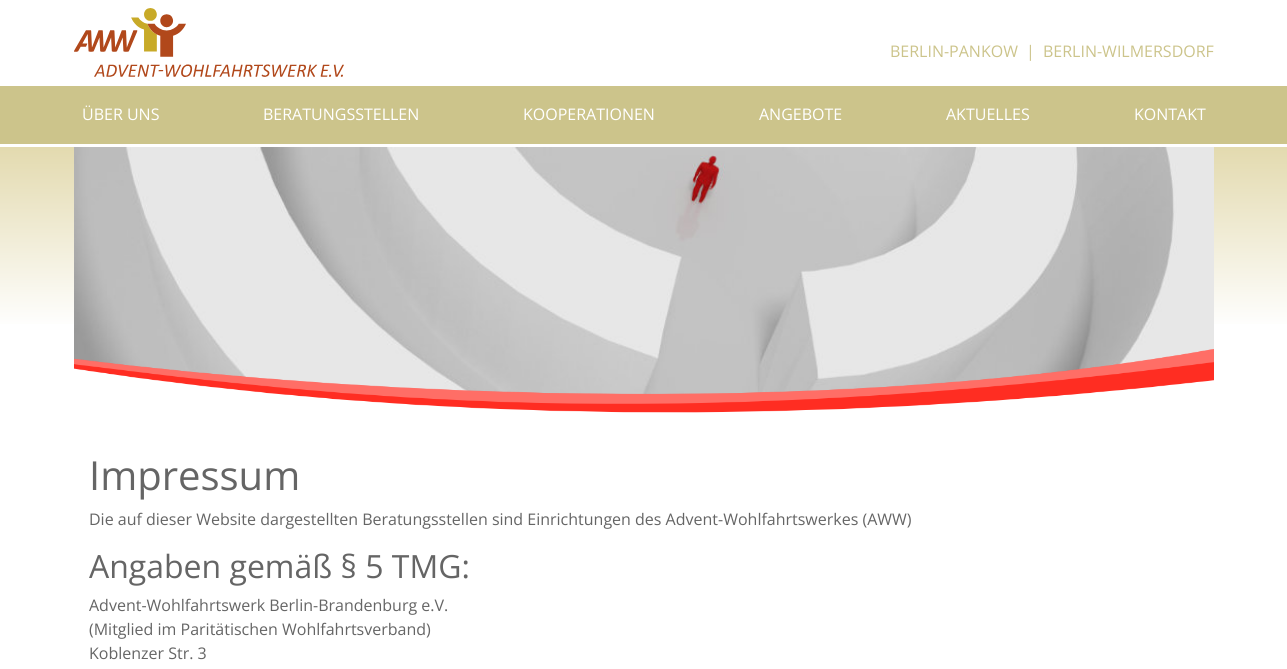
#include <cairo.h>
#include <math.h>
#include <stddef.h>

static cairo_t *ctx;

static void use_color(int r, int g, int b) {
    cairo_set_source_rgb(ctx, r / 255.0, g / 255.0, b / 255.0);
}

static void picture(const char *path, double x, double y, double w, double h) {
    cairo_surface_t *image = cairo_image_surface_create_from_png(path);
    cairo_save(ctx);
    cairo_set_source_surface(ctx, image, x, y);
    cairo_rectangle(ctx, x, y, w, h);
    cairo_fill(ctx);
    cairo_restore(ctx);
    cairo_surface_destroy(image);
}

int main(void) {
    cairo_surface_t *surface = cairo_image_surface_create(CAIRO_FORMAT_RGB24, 1287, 669);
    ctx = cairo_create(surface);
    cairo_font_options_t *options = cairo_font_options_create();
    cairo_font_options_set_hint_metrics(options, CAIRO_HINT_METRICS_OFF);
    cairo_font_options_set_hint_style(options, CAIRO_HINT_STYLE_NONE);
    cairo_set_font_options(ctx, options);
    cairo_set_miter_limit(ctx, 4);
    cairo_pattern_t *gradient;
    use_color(255, 255, 255);
    cairo_paint(ctx);
    picture("img1.png", 74, 8, 270, 69);
    cairo_select_font_face(ctx, "Open Sans", CAIRO_FONT_SLANT_NORMAL, CAIRO_FONT_WEIGHT_NORMAL);
    cairo_set_font_size(ctx, 16);
    use_color(204, 196, 139);
    cairo_move_to(ctx, 890, 57);
    cairo_show_text(ctx, "BERLIN-PANKOW");
    cairo_move_to(ctx, 1026, 57);
    cairo_show_text(ctx, "|");
    cairo_move_to(ctx, 1043, 57);
    cairo_show_text(ctx, "BERLIN-WILMERSDORF");
    cairo_rectangle(ctx, 0, 86, 1287, 58);
    cairo_fill(ctx);
    use_color(255, 255, 255);
    cairo_move_to(ctx, 82, 120);
    cairo_show_text(ctx, "ÜBER UNS");
    cairo_move_to(ctx, 263, 120);
    cairo_show_text(ctx, "BERATUNGSSTELLEN");
    cairo_move_to(ctx, 523, 120);
    cairo_show_text(ctx, "KOOPERATIONEN");
    cairo_move_to(ctx, 759, 120);
    cairo_show_text(ctx, "ANGEBOTE");
    cairo_move_to(ctx, 946, 120);
    cairo_show_text(ctx, "AKTUELLES");
    cairo_move_to(ctx, 1134, 120);
    cairo_show_text(ctx, "KONTAKT");
    gradient = cairo_pattern_create_linear(644, 147, 644, 451);
    cairo_pattern_add_color_stop_rgba(gradient, 0, 0.89, 0.855, 0.686, 1);
    cairo_pattern_add_color_stop_rgba(gradient, 0.6, 1, 1, 1, 1);
    cairo_set_source(ctx, gradient);
    cairo_pattern_destroy(gradient);
    cairo_rectangle(ctx, 0, 147, 1287, 177);
    cairo_fill(ctx);
    picture("img2.png", 74, 147, 1140, 247);
    picture("img3.png", 74, 349, 1140, 70);
    cairo_set_font_size(ctx, 40);
    use_color(101, 101, 101);
    cairo_move_to(ctx, 89, 490);
    cairo_show_text(ctx, "Impressum");
    cairo_set_font_size(ctx, 16);
    cairo_move_to(ctx, 89, 525);
    cairo_show_text(ctx, "Die auf dieser Website dargestellten Beratungsstellen sind Einrichtungen des Advent-Wohlfahrtswerkes (AWW)");
    cairo_set_font_size(ctx, 32);
    cairo_move_to(ctx, 89, 578);
    cairo_show_text(ctx, "Angaben gemäß § 5 TMG:");
    cairo_set_font_size(ctx, 16);
    cairo_move_to(ctx, 89, 611);
    cairo_show_text(ctx, "Advent-Wohlfahrtswerk Berlin-Brandenburg e.V.");
    cairo_move_to(ctx, 89, 635);
    cairo_show_text(ctx, "(Mitglied im Paritätischen Wohlfahrtsverband)");
    cairo_move_to(ctx, 89, 659);
    cairo_show_text(ctx, "Koblenzer Str. 3");
    cairo_surface_write_to_png(surface, "result.png");
    cairo_font_options_destroy(options);
    cairo_destroy(ctx);
    cairo_surface_destroy(surface);
    return 0;
}
